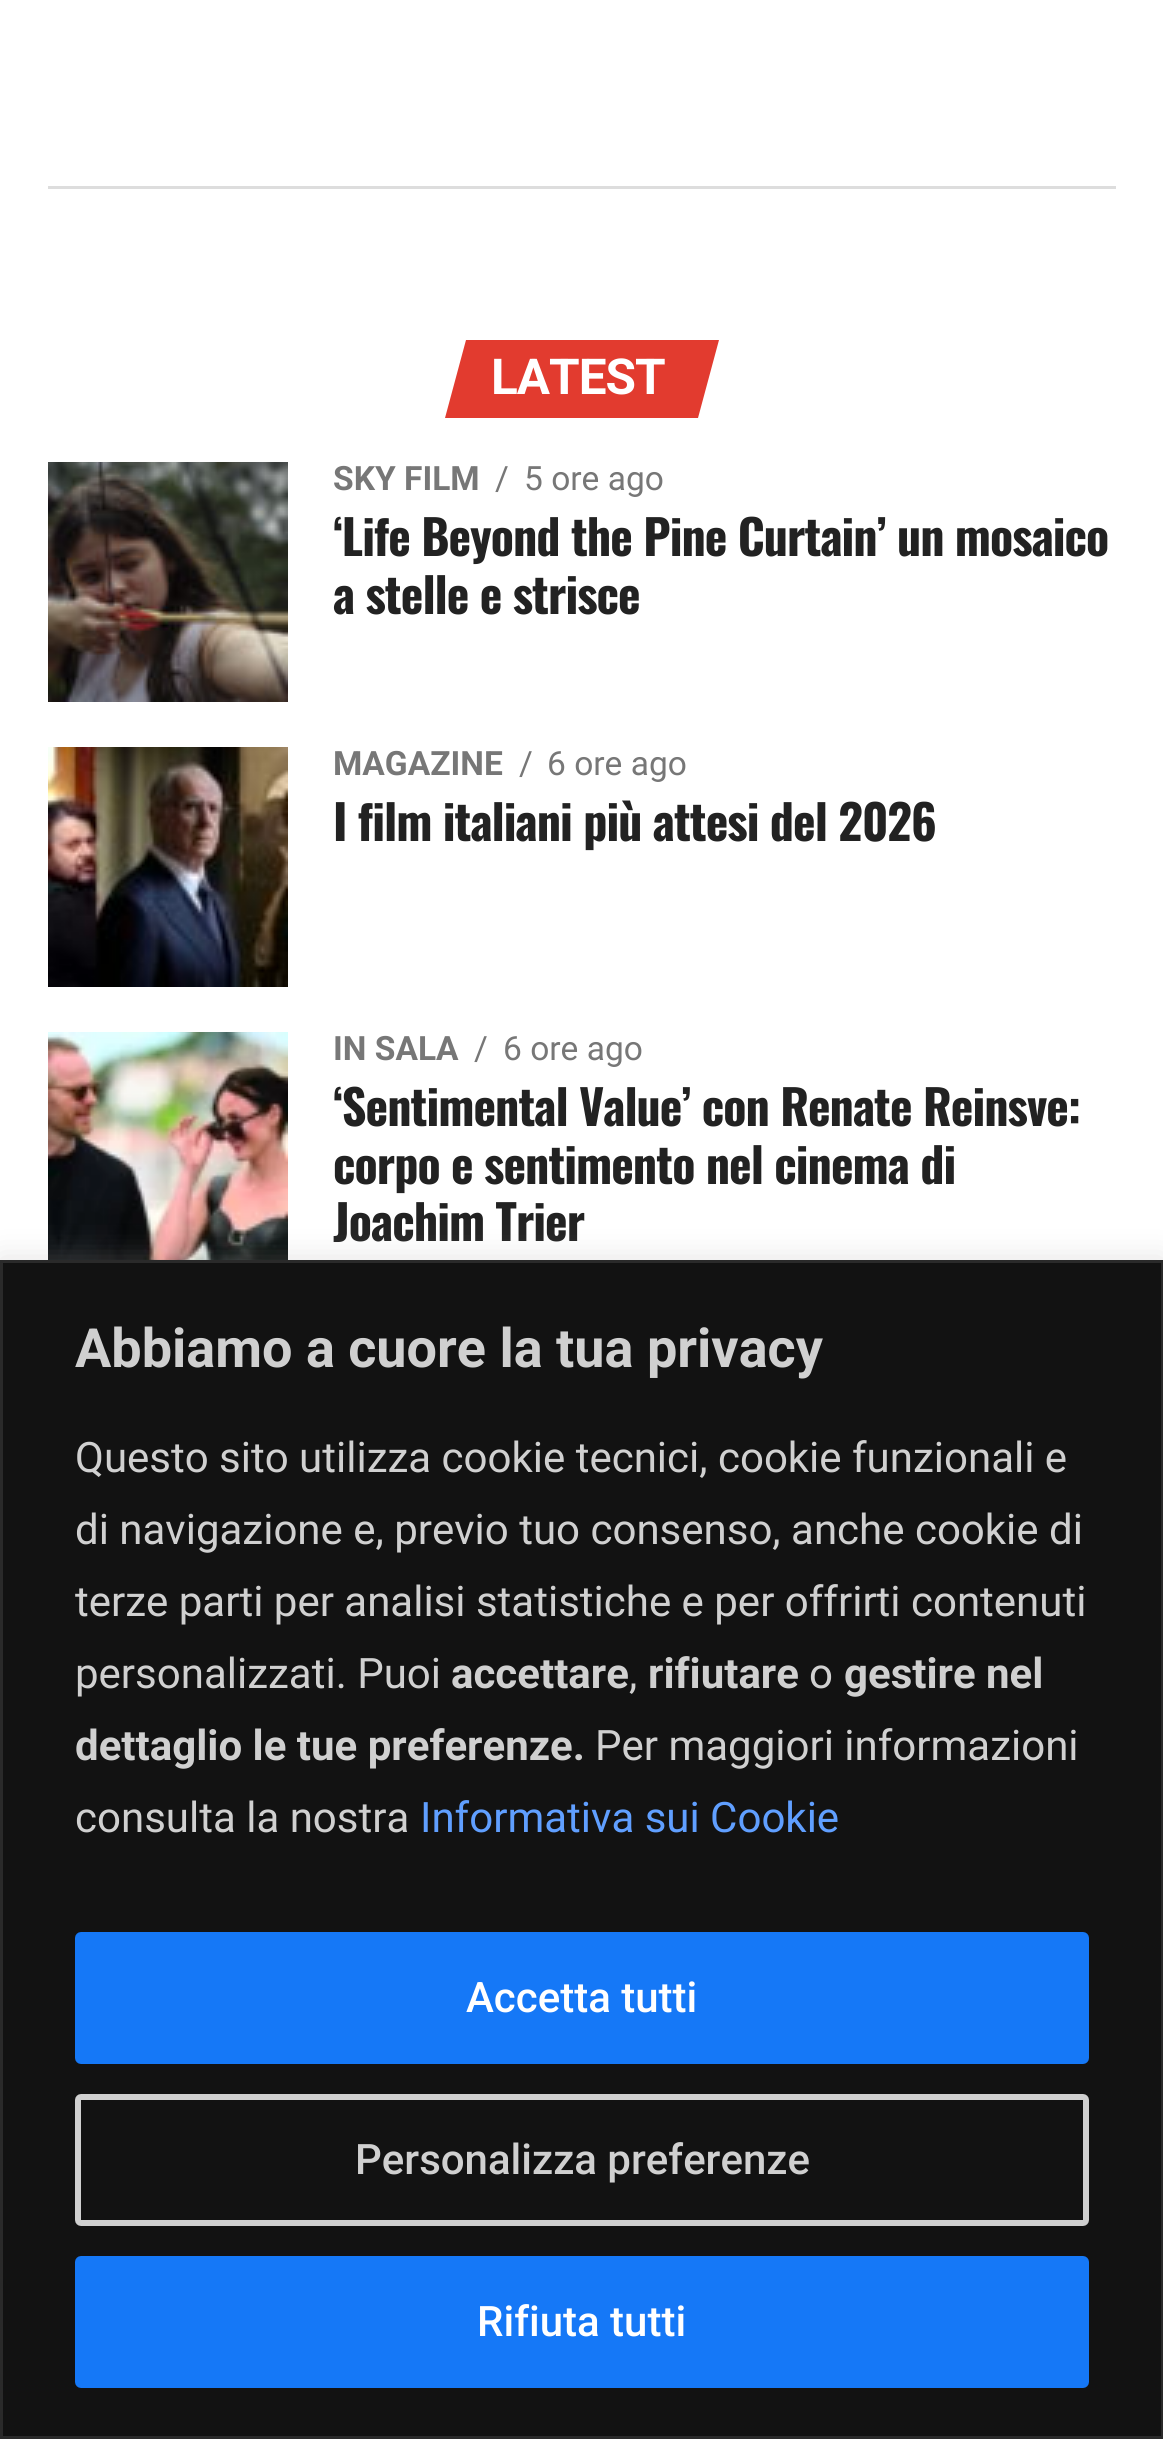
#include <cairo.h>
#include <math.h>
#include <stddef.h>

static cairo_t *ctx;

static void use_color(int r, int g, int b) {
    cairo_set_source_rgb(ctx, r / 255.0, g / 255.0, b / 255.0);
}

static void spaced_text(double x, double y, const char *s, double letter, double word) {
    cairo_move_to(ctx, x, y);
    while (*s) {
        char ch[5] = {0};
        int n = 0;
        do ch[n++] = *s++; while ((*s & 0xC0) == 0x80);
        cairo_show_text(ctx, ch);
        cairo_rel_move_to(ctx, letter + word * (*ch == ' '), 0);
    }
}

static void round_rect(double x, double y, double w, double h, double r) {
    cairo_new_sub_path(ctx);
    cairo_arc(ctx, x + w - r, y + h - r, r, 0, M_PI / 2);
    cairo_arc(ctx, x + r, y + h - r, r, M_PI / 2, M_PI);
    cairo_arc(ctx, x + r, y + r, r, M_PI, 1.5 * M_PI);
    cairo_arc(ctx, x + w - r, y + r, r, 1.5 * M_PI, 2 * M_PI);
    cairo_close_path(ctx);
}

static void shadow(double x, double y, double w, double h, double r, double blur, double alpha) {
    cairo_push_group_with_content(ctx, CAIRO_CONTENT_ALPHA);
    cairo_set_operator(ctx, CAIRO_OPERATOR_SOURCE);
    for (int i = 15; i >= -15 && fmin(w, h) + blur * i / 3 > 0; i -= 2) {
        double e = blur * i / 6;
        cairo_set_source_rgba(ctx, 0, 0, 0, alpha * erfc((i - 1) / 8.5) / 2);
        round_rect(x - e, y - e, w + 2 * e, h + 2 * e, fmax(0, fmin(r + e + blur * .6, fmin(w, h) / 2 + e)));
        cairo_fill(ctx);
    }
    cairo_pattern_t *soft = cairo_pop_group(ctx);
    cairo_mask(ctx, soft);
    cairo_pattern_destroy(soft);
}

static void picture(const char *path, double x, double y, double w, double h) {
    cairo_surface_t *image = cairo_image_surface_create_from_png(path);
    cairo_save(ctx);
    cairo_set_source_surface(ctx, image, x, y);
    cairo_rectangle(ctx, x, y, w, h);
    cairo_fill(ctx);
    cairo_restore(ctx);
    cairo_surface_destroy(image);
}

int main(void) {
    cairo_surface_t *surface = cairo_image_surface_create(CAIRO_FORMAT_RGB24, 1163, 2439);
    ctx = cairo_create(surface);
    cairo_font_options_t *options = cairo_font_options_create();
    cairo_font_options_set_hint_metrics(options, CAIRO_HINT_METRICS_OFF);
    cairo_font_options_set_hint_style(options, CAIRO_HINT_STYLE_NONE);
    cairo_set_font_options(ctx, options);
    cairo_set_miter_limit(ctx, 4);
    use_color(255, 255, 255);
    cairo_paint(ctx);
    use_color(221, 221, 221);
    cairo_rectangle(ctx, 48, 186, 1068, 3);
    cairo_fill(ctx);
    use_color(226, 59, 47);
    cairo_new_path(ctx);
    cairo_move_to(ctx, 466, 340);
    cairo_line_to(ctx, 719, 340);
    cairo_line_to(ctx, 698, 418);
    cairo_line_to(ctx, 445, 418);
    cairo_close_path(ctx);
    cairo_fill(ctx);
    cairo_select_font_face(ctx, "Roboto", CAIRO_FONT_SLANT_NORMAL, CAIRO_FONT_WEIGHT_BOLD);
    cairo_set_font_size(ctx, 49.5);
    use_color(255, 255, 255);
    spaced_text(491, 394, "LATEST", -1, 0);
    picture("img1.png", 48, 462, 240, 240);
    cairo_set_font_size(ctx, 33.5);
    use_color(119, 119, 119);
    cairo_move_to(ctx, 333, 490);
    cairo_show_text(ctx, "SKY FILM");
    cairo_select_font_face(ctx, "Roboto", CAIRO_FONT_SLANT_NORMAL, CAIRO_FONT_WEIGHT_NORMAL);
    cairo_move_to(ctx, 495, 490);
    cairo_show_text(ctx, "/");
    cairo_move_to(ctx, 524, 490);
    cairo_show_text(ctx, "5 ore ago");
    cairo_select_font_face(ctx, "Oswald", CAIRO_FONT_SLANT_NORMAL, CAIRO_FONT_WEIGHT_BOLD);
    cairo_set_font_size(ctx, 48);
    use_color(34, 34, 34);
    spaced_text(333, 556, "‘Life Beyond the Pine Curtain’ un mosaico", -0.95, 0);
    spaced_text(333, 614, "a stelle e strisce", -0.95, 0);
    picture("img2.png", 48, 747, 240, 240);
    cairo_select_font_face(ctx, "Roboto", CAIRO_FONT_SLANT_NORMAL, CAIRO_FONT_WEIGHT_BOLD);
    cairo_set_font_size(ctx, 33.5);
    use_color(119, 119, 119);
    cairo_move_to(ctx, 333, 775);
    cairo_show_text(ctx, "MAGAZINE");
    cairo_select_font_face(ctx, "Roboto", CAIRO_FONT_SLANT_NORMAL, CAIRO_FONT_WEIGHT_NORMAL);
    cairo_move_to(ctx, 519, 775);
    cairo_show_text(ctx, "/");
    cairo_move_to(ctx, 547, 775);
    cairo_show_text(ctx, "6 ore ago");
    cairo_select_font_face(ctx, "Oswald", CAIRO_FONT_SLANT_NORMAL, CAIRO_FONT_WEIGHT_BOLD);
    cairo_set_font_size(ctx, 48);
    use_color(34, 34, 34);
    spaced_text(333, 841, "I film italiani più attesi del 2026", -0.95, 0);
    picture("img3.png", 48, 1032, 240, 228);
    cairo_select_font_face(ctx, "Roboto", CAIRO_FONT_SLANT_NORMAL, CAIRO_FONT_WEIGHT_BOLD);
    cairo_set_font_size(ctx, 33.5);
    use_color(119, 119, 119);
    cairo_move_to(ctx, 333, 1060);
    cairo_show_text(ctx, "IN SALA");
    cairo_select_font_face(ctx, "Roboto", CAIRO_FONT_SLANT_NORMAL, CAIRO_FONT_WEIGHT_NORMAL);
    cairo_move_to(ctx, 474, 1060);
    cairo_show_text(ctx, "/");
    cairo_move_to(ctx, 503, 1060);
    cairo_show_text(ctx, "6 ore ago");
    cairo_select_font_face(ctx, "Oswald", CAIRO_FONT_SLANT_NORMAL, CAIRO_FONT_WEIGHT_BOLD);
    cairo_set_font_size(ctx, 48);
    use_color(34, 34, 34);
    spaced_text(333, 1126, "‘Sentimental Value’ con Renate Reinsve:", -0.95, 0);
    spaced_text(333, 1184, "corpo e sentimento nel cinema di", -0.95, 0);
    spaced_text(333, 1241, "Joachim Trier", -0.95, 0);
    use_color(172, 171, 171);
    shadow(0, 1257, 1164, 1179, 0, 15, 0.3);
    use_color(18, 18, 18);
    cairo_rectangle(ctx, 1.5, 1261.5, 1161, 1176);
    cairo_fill_preserve(ctx);
    use_color(42, 42, 42);
    cairo_set_line_width(ctx, 3);
    cairo_stroke(ctx);
    cairo_select_font_face(ctx, "Roboto", CAIRO_FONT_SLANT_NORMAL, CAIRO_FONT_WEIGHT_BOLD);
    cairo_set_font_size(ctx, 54);
    use_color(208, 208, 208);
    cairo_move_to(ctx, 75, 1367);
    cairo_show_text(ctx, "Abbiamo a cuore la tua privacy");
    cairo_select_font_face(ctx, "Roboto", CAIRO_FONT_SLANT_NORMAL, CAIRO_FONT_WEIGHT_NORMAL);
    cairo_set_font_size(ctx, 42);
    cairo_move_to(ctx, 75, 1472);
    cairo_show_text(ctx, "Questo sito utilizza cookie tecnici, cookie funzionali e");
    cairo_move_to(ctx, 75, 1544);
    cairo_show_text(ctx, "di navigazione e, previo tuo consenso, anche cookie di");
    cairo_move_to(ctx, 75, 1616);
    cairo_show_text(ctx, "terze parti per analisi statistiche e per offrirti contenuti");
    cairo_move_to(ctx, 75, 1688);
    cairo_show_text(ctx, "personalizzati. Puoi");
    cairo_select_font_face(ctx, "Roboto", CAIRO_FONT_SLANT_NORMAL, CAIRO_FONT_WEIGHT_BOLD);
    cairo_move_to(ctx, 451, 1688);
    cairo_show_text(ctx, "accettare");
    cairo_select_font_face(ctx, "Roboto", CAIRO_FONT_SLANT_NORMAL, CAIRO_FONT_WEIGHT_NORMAL);
    cairo_move_to(ctx, 629, 1688);
    cairo_show_text(ctx, ",");
    cairo_select_font_face(ctx, "Roboto", CAIRO_FONT_SLANT_NORMAL, CAIRO_FONT_WEIGHT_BOLD);
    cairo_move_to(ctx, 648, 1688);
    cairo_show_text(ctx, "rifiutare");
    cairo_select_font_face(ctx, "Roboto", CAIRO_FONT_SLANT_NORMAL, CAIRO_FONT_WEIGHT_NORMAL);
    cairo_move_to(ctx, 809, 1688);
    cairo_show_text(ctx, "o");
    cairo_select_font_face(ctx, "Roboto", CAIRO_FONT_SLANT_NORMAL, CAIRO_FONT_WEIGHT_BOLD);
    cairo_move_to(ctx, 844, 1688);
    cairo_show_text(ctx, "gestire nel");
    cairo_move_to(ctx, 75, 1760);
    cairo_show_text(ctx, "dettaglio le tue preferenze.");
    cairo_select_font_face(ctx, "Roboto", CAIRO_FONT_SLANT_NORMAL, CAIRO_FONT_WEIGHT_NORMAL);
    cairo_move_to(ctx, 595, 1760);
    cairo_show_text(ctx, "Per maggiori informazioni");
    cairo_move_to(ctx, 75, 1832);
    cairo_show_text(ctx, "consulta la nostra");
    use_color(96, 159, 255);
    cairo_move_to(ctx, 420, 1832);
    cairo_show_text(ctx, "Informativa sui Cookie");
    use_color(21, 120, 247);
    round_rect(78, 1935, 1008, 126, 3);
    cairo_fill_preserve(ctx);
    cairo_set_line_width(ctx, 6);
    cairo_stroke(ctx);
    cairo_select_font_face(ctx, "Roboto Medium", CAIRO_FONT_SLANT_NORMAL, CAIRO_FONT_WEIGHT_NORMAL);
    use_color(255, 255, 255);
    cairo_move_to(ctx, 466, 2012);
    cairo_show_text(ctx, "Accetta tutti");
    round_rect(78, 2097, 1008, 126, 3);
    use_color(208, 208, 208);
    cairo_stroke(ctx);
    cairo_move_to(ctx, 355, 2174);
    cairo_show_text(ctx, "Personalizza preferenze");
    use_color(21, 120, 247);
    round_rect(78, 2259, 1008, 126, 3);
    cairo_fill_preserve(ctx);
    cairo_stroke(ctx);
    use_color(255, 255, 255);
    cairo_move_to(ctx, 477, 2336);
    cairo_show_text(ctx, "Rifiuta tutti");
    cairo_surface_write_to_png(surface, "result.png");
    cairo_font_options_destroy(options);
    cairo_destroy(ctx);
    cairo_surface_destroy(surface);
    return 0;
}
